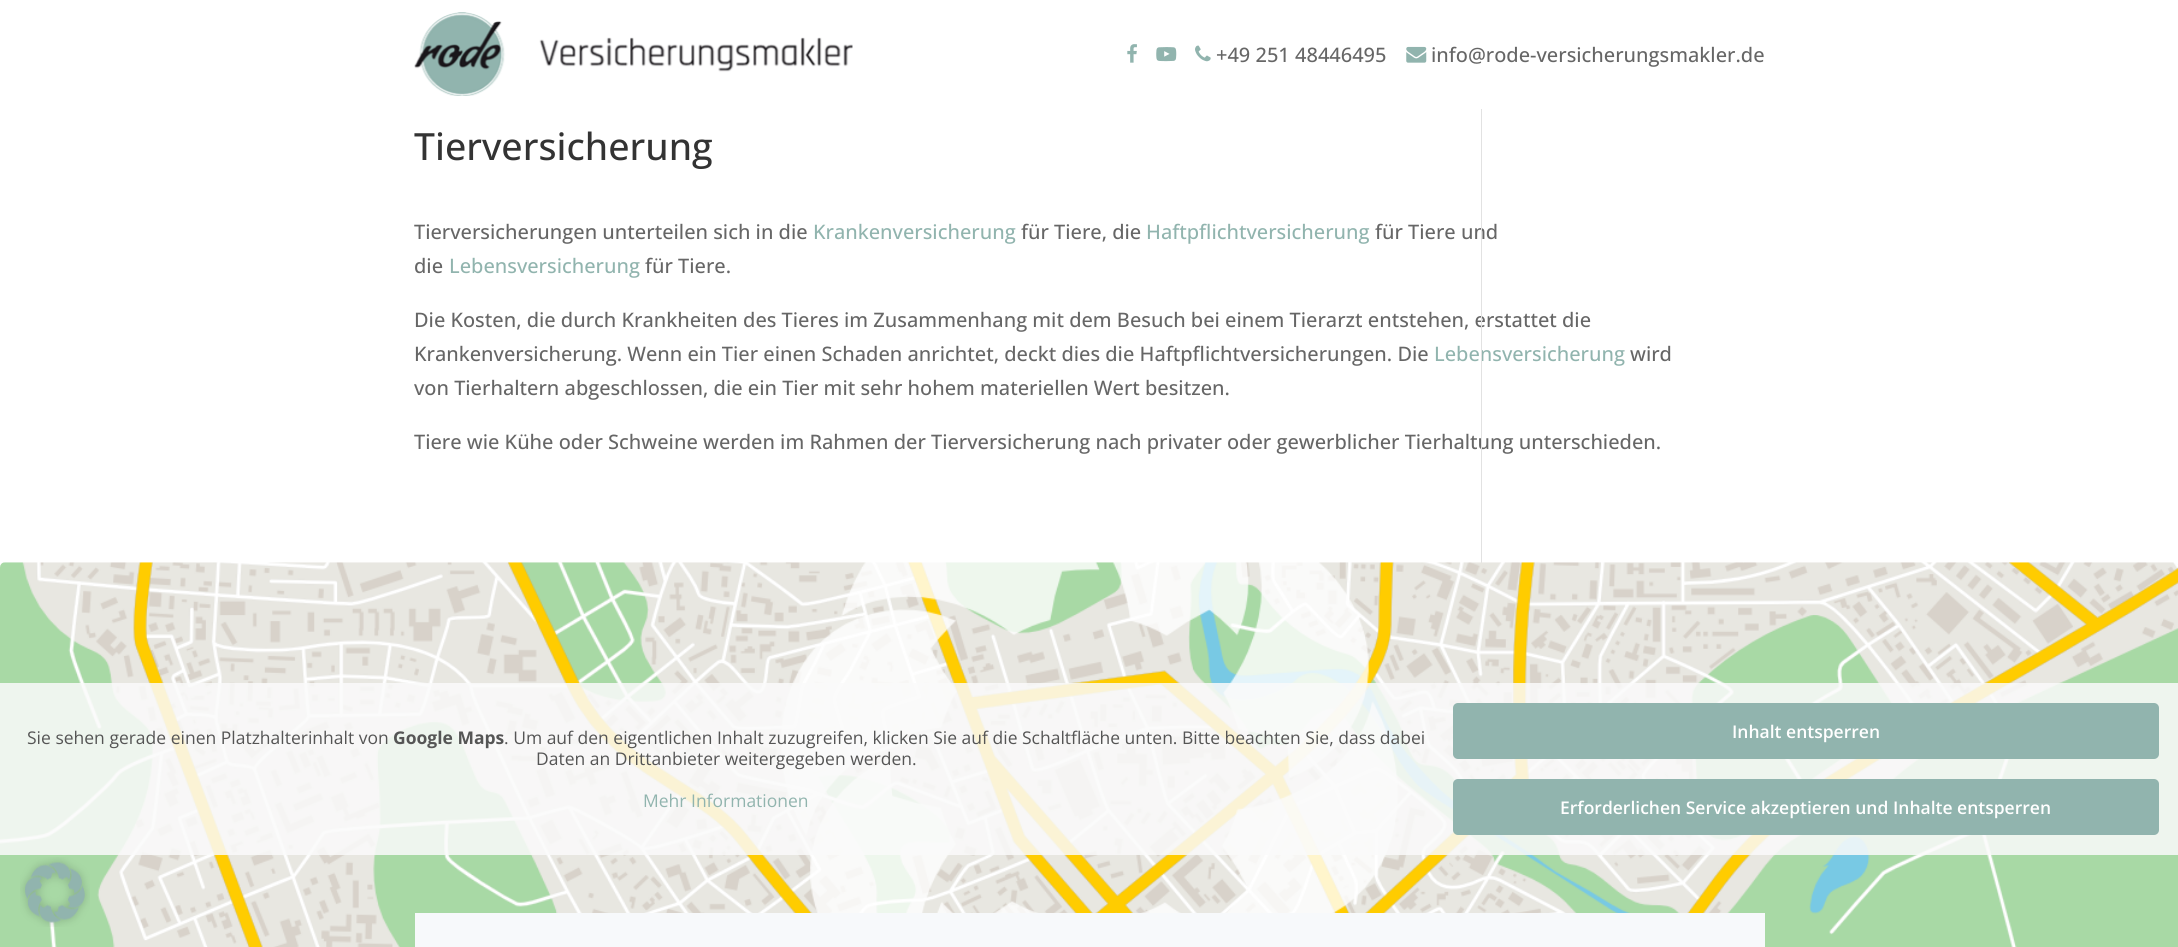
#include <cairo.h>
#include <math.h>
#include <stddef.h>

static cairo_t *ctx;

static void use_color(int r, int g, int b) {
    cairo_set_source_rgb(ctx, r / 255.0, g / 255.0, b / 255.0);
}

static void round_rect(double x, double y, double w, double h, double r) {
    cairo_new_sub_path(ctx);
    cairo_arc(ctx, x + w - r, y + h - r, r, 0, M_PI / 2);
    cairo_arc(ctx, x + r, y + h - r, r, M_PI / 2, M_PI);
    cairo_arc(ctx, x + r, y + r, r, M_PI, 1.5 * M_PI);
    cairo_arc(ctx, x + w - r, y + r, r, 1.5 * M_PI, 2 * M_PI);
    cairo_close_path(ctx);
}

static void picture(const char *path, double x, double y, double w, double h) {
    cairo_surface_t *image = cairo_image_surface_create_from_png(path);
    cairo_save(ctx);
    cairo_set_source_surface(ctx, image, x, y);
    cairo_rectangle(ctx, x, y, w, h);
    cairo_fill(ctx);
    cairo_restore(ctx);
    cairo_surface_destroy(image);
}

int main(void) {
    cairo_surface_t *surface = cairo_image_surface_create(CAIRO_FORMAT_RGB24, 2178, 947);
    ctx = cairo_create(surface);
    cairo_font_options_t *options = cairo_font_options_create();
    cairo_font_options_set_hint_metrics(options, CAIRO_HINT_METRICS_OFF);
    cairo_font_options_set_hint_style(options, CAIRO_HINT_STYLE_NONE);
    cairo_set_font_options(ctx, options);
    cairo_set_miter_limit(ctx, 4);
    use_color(255, 255, 255);
    cairo_paint(ctx);
    picture("img1.png", 414, 12, 439, 84);
    picture("img2.png", 1127, 44, 10, 19);
    picture("img3.png", 1156, 47, 21, 15);
    picture("img4.png", 1195, 45, 16, 17);
    cairo_select_font_face(ctx, "Open Sans Medium", CAIRO_FONT_SLANT_NORMAL, CAIRO_FONT_WEIGHT_NORMAL);
    cairo_set_font_size(ctx, 20);
    use_color(102, 102, 102);
    cairo_move_to(ctx, 1216, 62);
    cairo_show_text(ctx, "+49 251 48446495");
    picture("img5.png", 1406, 46, 21, 17);
    cairo_move_to(ctx, 1431, 62);
    cairo_show_text(ctx, "info@rode-versicherungsmakler.de");
    cairo_move_to(ctx, 1375, 239);
    cairo_show_text(ctx, "für Tiere und");
    cairo_move_to(ctx, 414, 327);
    cairo_show_text(ctx, "Die Kosten, die durch Krankheiten des Tieres im Zusammenhang mit dem Besuch bei einem Tierarzt entstehen, erstattet die");
    use_color(145, 180, 174);
    cairo_move_to(ctx, 1434, 361);
    cairo_show_text(ctx, "Lebensversicherung");
    use_color(102, 102, 102);
    cairo_move_to(ctx, 414, 449);
    cairo_show_text(ctx, "Tiere wie Kühe oder Schweine werden im Rahmen der Tierversicherung nach privater oder gewerblicher Tierhaltung unterschieden.");
    use_color(226, 226, 226);
    cairo_rectangle(ctx, 1481, 109, 1, 454);
    cairo_fill(ctx);
    cairo_set_font_size(ctx, 37.5);
    use_color(51, 51, 51);
    cairo_move_to(ctx, 414, 160);
    cairo_show_text(ctx, "Tierversicherung");
    cairo_set_font_size(ctx, 20);
    use_color(102, 102, 102);
    cairo_move_to(ctx, 414, 239);
    cairo_show_text(ctx, "Tierversicherungen unterteilen sich in die");
    use_color(145, 180, 174);
    cairo_move_to(ctx, 813, 239);
    cairo_show_text(ctx, "Krankenversicherung");
    use_color(102, 102, 102);
    cairo_move_to(ctx, 1021, 239);
    cairo_show_text(ctx, "für Tiere, die");
    use_color(145, 180, 174);
    cairo_move_to(ctx, 1146, 239);
    cairo_show_text(ctx, "Haftpflichtversicherung");
    use_color(102, 102, 102);
    cairo_move_to(ctx, 414, 273);
    cairo_show_text(ctx, "die");
    use_color(145, 180, 174);
    cairo_move_to(ctx, 449, 273);
    cairo_show_text(ctx, "Lebensversicherung");
    use_color(102, 102, 102);
    cairo_move_to(ctx, 645, 273);
    cairo_show_text(ctx, "für Tiere.");
    cairo_move_to(ctx, 414, 361);
    cairo_show_text(ctx, "Krankenversicherung. Wenn ein Tier einen Schaden anrichtet, deckt dies die Haftpflichtversicherungen. Die");
    cairo_move_to(ctx, 1630, 361);
    cairo_show_text(ctx, "wird");
    cairo_move_to(ctx, 414, 395);
    cairo_show_text(ctx, "von Tierhaltern abgeschlossen, die ein Tier mit sehr hohem materiellen Wert besitzen.");
    picture("img6.png", 0, 562, 2178, 385);
    cairo_set_source_rgba(ctx, 0.98, 0.98, 0.98, 0.85);
    cairo_rectangle(ctx, 0, 683, 2178, 172);
    cairo_fill(ctx);
    cairo_select_font_face(ctx, "Open Sans", CAIRO_FONT_SLANT_NORMAL, CAIRO_FONT_WEIGHT_NORMAL);
    cairo_set_font_size(ctx, 17.5);
    use_color(85, 85, 85);
    cairo_move_to(ctx, 27, 744);
    cairo_show_text(ctx, "Sie sehen gerade einen Platzhalterinhalt von");
    cairo_select_font_face(ctx, "Open Sans", CAIRO_FONT_SLANT_NORMAL, CAIRO_FONT_WEIGHT_BOLD);
    cairo_move_to(ctx, 393, 744);
    cairo_show_text(ctx, "Google Maps");
    cairo_select_font_face(ctx, "Open Sans", CAIRO_FONT_SLANT_NORMAL, CAIRO_FONT_WEIGHT_NORMAL);
    cairo_move_to(ctx, 504, 744);
    cairo_show_text(ctx, ". Um auf den eigentlichen Inhalt zuzugreifen, klicken Sie auf die Schaltfläche unten. Bitte beachten Sie, dass dabei");
    cairo_move_to(ctx, 536, 765);
    cairo_show_text(ctx, "Daten an Drittanbieter weitergegeben werden.");
    use_color(145, 180, 174);
    cairo_move_to(ctx, 643, 807);
    cairo_show_text(ctx, "Mehr Informationen");
    round_rect(1453, 703, 706, 56, 5);
    cairo_fill(ctx);
    cairo_select_font_face(ctx, "Open Sans SemiBold", CAIRO_FONT_SLANT_NORMAL, CAIRO_FONT_WEIGHT_NORMAL);
    use_color(255, 255, 255);
    cairo_move_to(ctx, 1732, 738);
    cairo_show_text(ctx, "Inhalt entsperren");
    use_color(145, 180, 174);
    round_rect(1453, 779, 706, 56, 5);
    cairo_fill(ctx);
    use_color(255, 255, 255);
    cairo_move_to(ctx, 1560, 814);
    cairo_show_text(ctx, "Erforderlichen Service akzeptieren und Inhalte entsperren");
    use_color(247, 249, 251);
    cairo_rectangle(ctx, 415, 913, 1350, 34);
    cairo_fill(ctx);
    picture("img7.png", 20, 857, 70, 70);
    cairo_surface_write_to_png(surface, "result.png");
    cairo_font_options_destroy(options);
    cairo_destroy(ctx);
    cairo_surface_destroy(surface);
    return 0;
}
